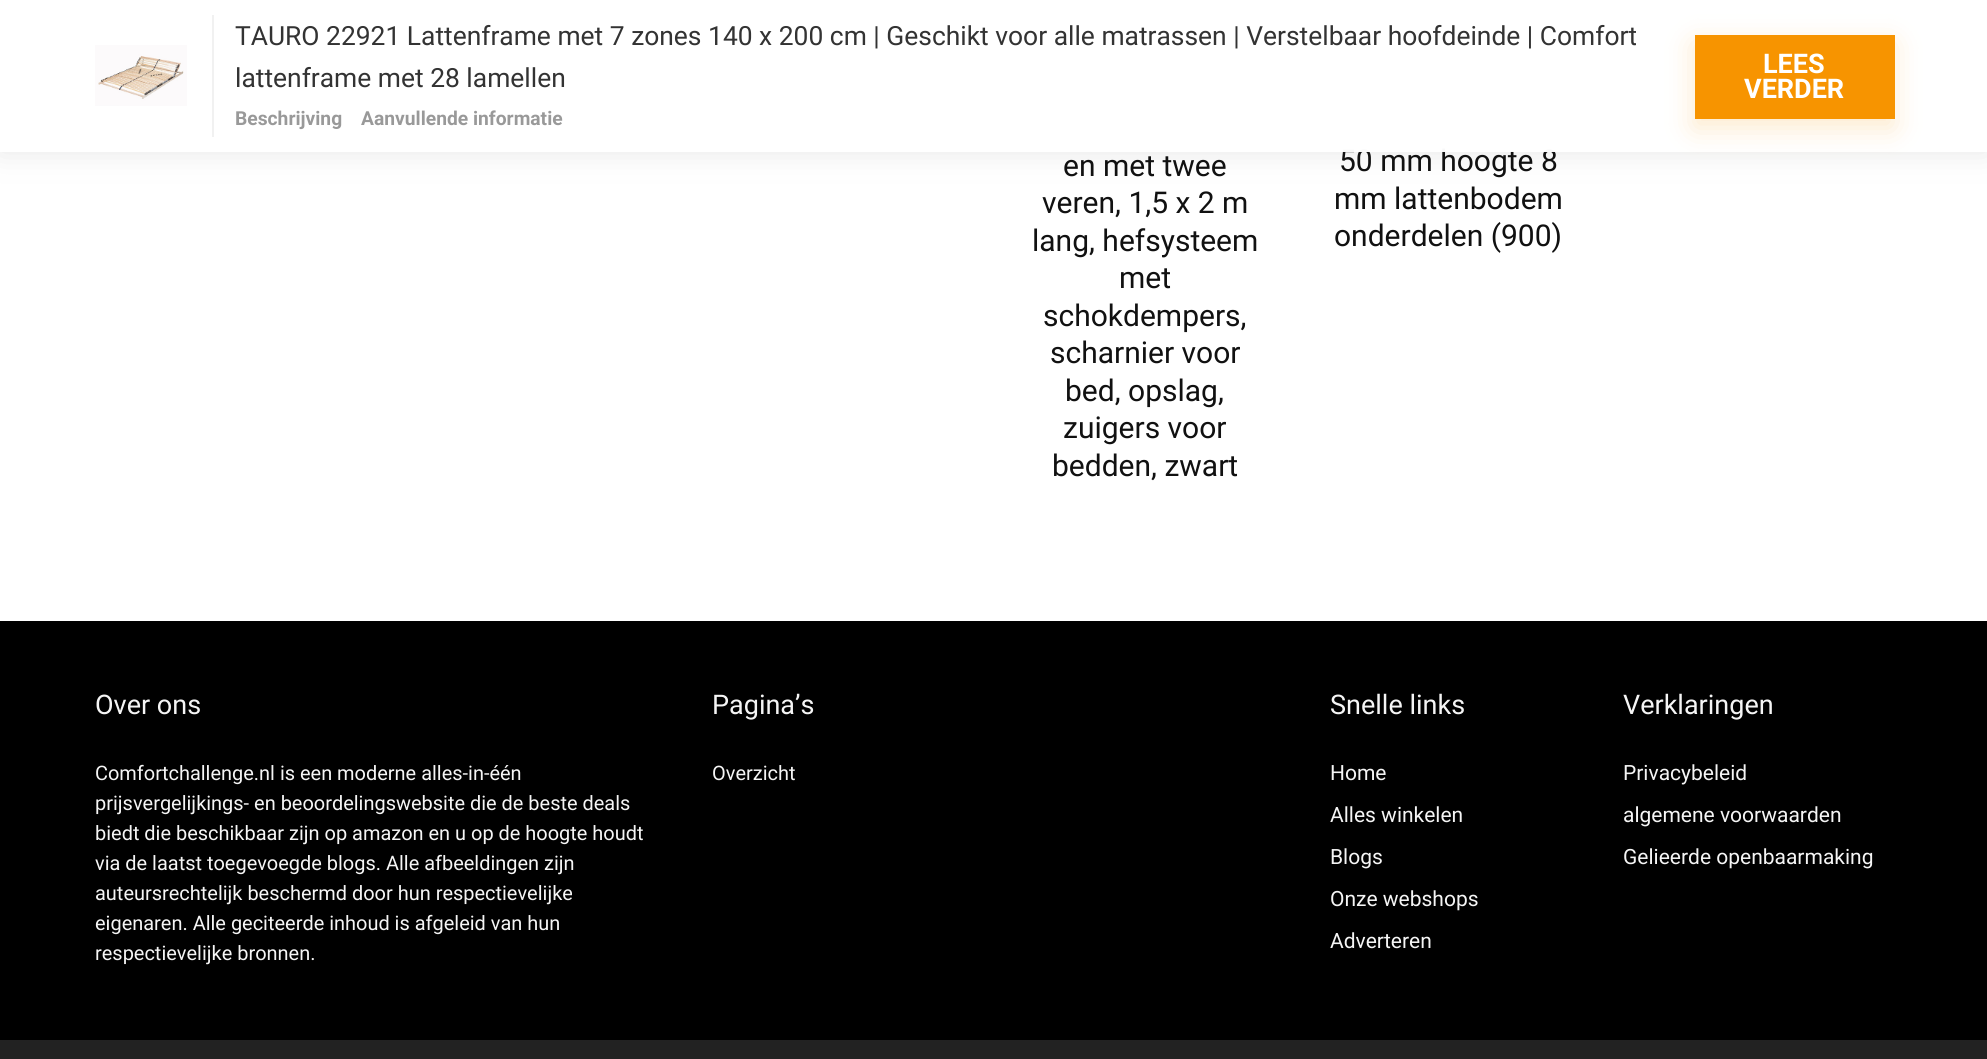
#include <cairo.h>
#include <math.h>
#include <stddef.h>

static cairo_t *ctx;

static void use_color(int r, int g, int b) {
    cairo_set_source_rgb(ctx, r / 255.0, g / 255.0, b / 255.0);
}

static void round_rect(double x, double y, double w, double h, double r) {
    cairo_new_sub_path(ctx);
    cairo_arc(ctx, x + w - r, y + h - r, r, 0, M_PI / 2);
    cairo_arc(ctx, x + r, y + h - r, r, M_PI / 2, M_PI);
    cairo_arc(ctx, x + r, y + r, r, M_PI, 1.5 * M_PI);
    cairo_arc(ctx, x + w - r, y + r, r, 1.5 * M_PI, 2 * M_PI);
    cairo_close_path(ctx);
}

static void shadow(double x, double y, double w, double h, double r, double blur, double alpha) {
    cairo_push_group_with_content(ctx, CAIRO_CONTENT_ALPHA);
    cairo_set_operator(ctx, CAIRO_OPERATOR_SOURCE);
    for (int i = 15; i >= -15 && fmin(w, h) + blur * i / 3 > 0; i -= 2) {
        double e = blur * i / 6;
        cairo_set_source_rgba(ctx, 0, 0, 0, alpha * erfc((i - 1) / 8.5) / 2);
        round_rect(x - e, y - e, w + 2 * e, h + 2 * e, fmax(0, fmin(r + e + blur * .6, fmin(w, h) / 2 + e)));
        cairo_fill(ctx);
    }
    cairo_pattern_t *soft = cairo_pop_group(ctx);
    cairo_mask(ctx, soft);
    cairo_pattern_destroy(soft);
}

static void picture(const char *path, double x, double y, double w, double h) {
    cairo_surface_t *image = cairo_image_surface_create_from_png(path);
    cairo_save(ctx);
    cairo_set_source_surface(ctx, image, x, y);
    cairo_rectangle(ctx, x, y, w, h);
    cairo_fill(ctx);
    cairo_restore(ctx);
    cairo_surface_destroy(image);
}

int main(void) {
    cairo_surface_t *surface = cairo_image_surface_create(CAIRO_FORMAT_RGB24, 1987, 1059);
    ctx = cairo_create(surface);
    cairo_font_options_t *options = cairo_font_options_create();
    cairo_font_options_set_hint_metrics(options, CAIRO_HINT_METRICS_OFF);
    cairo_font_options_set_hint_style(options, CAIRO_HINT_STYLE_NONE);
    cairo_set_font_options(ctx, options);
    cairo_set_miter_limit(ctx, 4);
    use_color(255, 255, 255);
    cairo_paint(ctx);
    cairo_save(ctx);
    cairo_set_fill_rule(ctx, CAIRO_FILL_RULE_EVEN_ODD);
    cairo_new_path(ctx);
    cairo_move_to(ctx, 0, 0);
    cairo_line_to(ctx, 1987, 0);
    cairo_line_to(ctx, 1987, 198);
    cairo_line_to(ctx, 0, 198);
    cairo_close_path(ctx);
    cairo_move_to(ctx, 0, 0);
    cairo_line_to(ctx, 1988, 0);
    cairo_line_to(ctx, 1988, 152);
    cairo_line_to(ctx, 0, 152);
    cairo_close_path(ctx);
    cairo_clip(ctx);
    use_color(187, 187, 187);
    shadow(0, 0, 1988, 152, 0, 15, 0.36);
    cairo_restore(ctx);
    cairo_select_font_face(ctx, "Roboto", CAIRO_FONT_SLANT_NORMAL, CAIRO_FONT_WEIGHT_NORMAL);
    cairo_set_font_size(ctx, 30);
    use_color(17, 17, 17);
    cairo_move_to(ctx, 1339, 171);
    cairo_show_text(ctx, "50 mm hoogte 8");
    cairo_set_source_rgba(ctx, 1, 1, 1, 0.97);
    cairo_rectangle(ctx, 0, 148, 1987, 4);
    cairo_fill(ctx);
    picture("img1.png", 95, 45, 92, 61);
    cairo_set_source_rgba(ctx, 0.808, 0.808, 0.808, 0.3);
    cairo_rectangle(ctx, 212, 15, 2, 122);
    cairo_fill(ctx);
    cairo_set_font_size(ctx, 26.4);
    use_color(51, 51, 51);
    cairo_move_to(ctx, 235, 45);
    cairo_show_text(ctx, "TAURO 22921 Lattenframe met 7 zones 140 x 200 cm | Geschikt voor alle matrassen | Verstelbaar hoofdeinde | Comfort");
    cairo_move_to(ctx, 235, 87);
    cairo_show_text(ctx, "lattenframe met 28 lamellen");
    cairo_select_font_face(ctx, "Roboto", CAIRO_FONT_SLANT_NORMAL, CAIRO_FONT_WEIGHT_BOLD);
    cairo_set_font_size(ctx, 19.25);
    use_color(153, 153, 153);
    cairo_move_to(ctx, 235, 125);
    cairo_show_text(ctx, "Beschrijving");
    cairo_move_to(ctx, 361, 125);
    cairo_show_text(ctx, "Aanvullende informatie");
    use_color(247, 148, 0);
    shadow(1694, 44, 199, 84, 0, 14, 0.2);
    use_color(247, 148, 0);
    cairo_rectangle(ctx, 1695, 35, 200, 84);
    cairo_fill(ctx);
    cairo_set_font_size(ctx, 27);
    use_color(255, 255, 255);
    cairo_move_to(ctx, 1763, 73);
    cairo_show_text(ctx, "LEES");
    cairo_move_to(ctx, 1744, 98);
    cairo_show_text(ctx, "VERDER");
    cairo_select_font_face(ctx, "Roboto", CAIRO_FONT_SLANT_NORMAL, CAIRO_FONT_WEIGHT_NORMAL);
    cairo_set_font_size(ctx, 30);
    use_color(17, 17, 17);
    cairo_move_to(ctx, 1063, 176);
    cairo_show_text(ctx, "en met twee");
    cairo_move_to(ctx, 1042, 213);
    cairo_show_text(ctx, "veren, 1,5 x 2 m");
    cairo_move_to(ctx, 1032, 251);
    cairo_show_text(ctx, "lang, hefsysteem");
    cairo_move_to(ctx, 1119, 288);
    cairo_show_text(ctx, "met");
    cairo_move_to(ctx, 1043, 326);
    cairo_show_text(ctx, "schokdempers,");
    cairo_move_to(ctx, 1050, 363);
    cairo_show_text(ctx, "scharnier voor");
    cairo_move_to(ctx, 1065, 401);
    cairo_show_text(ctx, "bed, opslag,");
    cairo_move_to(ctx, 1063, 438);
    cairo_show_text(ctx, "zuigers voor");
    cairo_move_to(ctx, 1052, 476);
    cairo_show_text(ctx, "bedden, zwart");
    cairo_move_to(ctx, 1334, 209);
    cairo_show_text(ctx, "mm lattenbodem");
    cairo_move_to(ctx, 1334, 246);
    cairo_show_text(ctx, "onderdelen (900)");
    use_color(0, 0, 0);
    cairo_rectangle(ctx, 0, 621, 1987, 419);
    cairo_fill(ctx);
    cairo_set_font_size(ctx, 27);
    use_color(245, 245, 245);
    cairo_move_to(ctx, 95, 714);
    cairo_show_text(ctx, "Over ons");
    cairo_set_font_size(ctx, 19.95);
    cairo_move_to(ctx, 95, 780);
    cairo_show_text(ctx, "Comfortchallenge.nl is een moderne alles-in-één");
    cairo_move_to(ctx, 95, 810);
    cairo_show_text(ctx, "prijsvergelijkings- en beoordelingswebsite die de beste deals");
    cairo_move_to(ctx, 95, 840);
    cairo_show_text(ctx, "biedt die beschikbaar zijn op amazon en u op de hoogte houdt");
    cairo_move_to(ctx, 95, 870);
    cairo_show_text(ctx, "via de laatst toegevoegde blogs. Alle afbeeldingen zijn");
    cairo_move_to(ctx, 95, 900);
    cairo_show_text(ctx, "auteursrechtelijk beschermd door hun respectievelijke");
    cairo_move_to(ctx, 95, 930);
    cairo_show_text(ctx, "eigenaren. Alle geciteerde inhoud is afgeleid van hun");
    cairo_move_to(ctx, 95, 960);
    cairo_show_text(ctx, "respectievelijke bronnen.");
    cairo_set_font_size(ctx, 27);
    cairo_move_to(ctx, 712, 714);
    cairo_show_text(ctx, "Pagina’s");
    cairo_set_font_size(ctx, 19.95);
    cairo_move_to(ctx, 712, 780);
    cairo_show_text(ctx, "Overzicht");
    cairo_set_font_size(ctx, 27);
    cairo_move_to(ctx, 1330, 714);
    cairo_show_text(ctx, "Snelle links");
    cairo_set_font_size(ctx, 21);
    cairo_move_to(ctx, 1330, 780);
    cairo_show_text(ctx, "Home");
    cairo_move_to(ctx, 1330, 822);
    cairo_show_text(ctx, "Alles winkelen");
    cairo_move_to(ctx, 1330, 864);
    cairo_show_text(ctx, "Blogs");
    cairo_move_to(ctx, 1330, 906);
    cairo_show_text(ctx, "Onze webshops");
    cairo_move_to(ctx, 1330, 948);
    cairo_show_text(ctx, "Adverteren");
    cairo_set_font_size(ctx, 27);
    cairo_move_to(ctx, 1623, 714);
    cairo_show_text(ctx, "Verklaringen");
    cairo_set_font_size(ctx, 21);
    cairo_move_to(ctx, 1623, 780);
    cairo_show_text(ctx, "Privacybeleid");
    cairo_move_to(ctx, 1623, 822);
    cairo_show_text(ctx, "algemene voorwaarden");
    cairo_move_to(ctx, 1623, 864);
    cairo_show_text(ctx, "Gelieerde openbaarmaking");
    use_color(34, 34, 34);
    cairo_rectangle(ctx, 0, 1040, 1987, 19);
    cairo_fill(ctx);
    cairo_surface_write_to_png(surface, "result.png");
    cairo_font_options_destroy(options);
    cairo_destroy(ctx);
    cairo_surface_destroy(surface);
    return 0;
}
